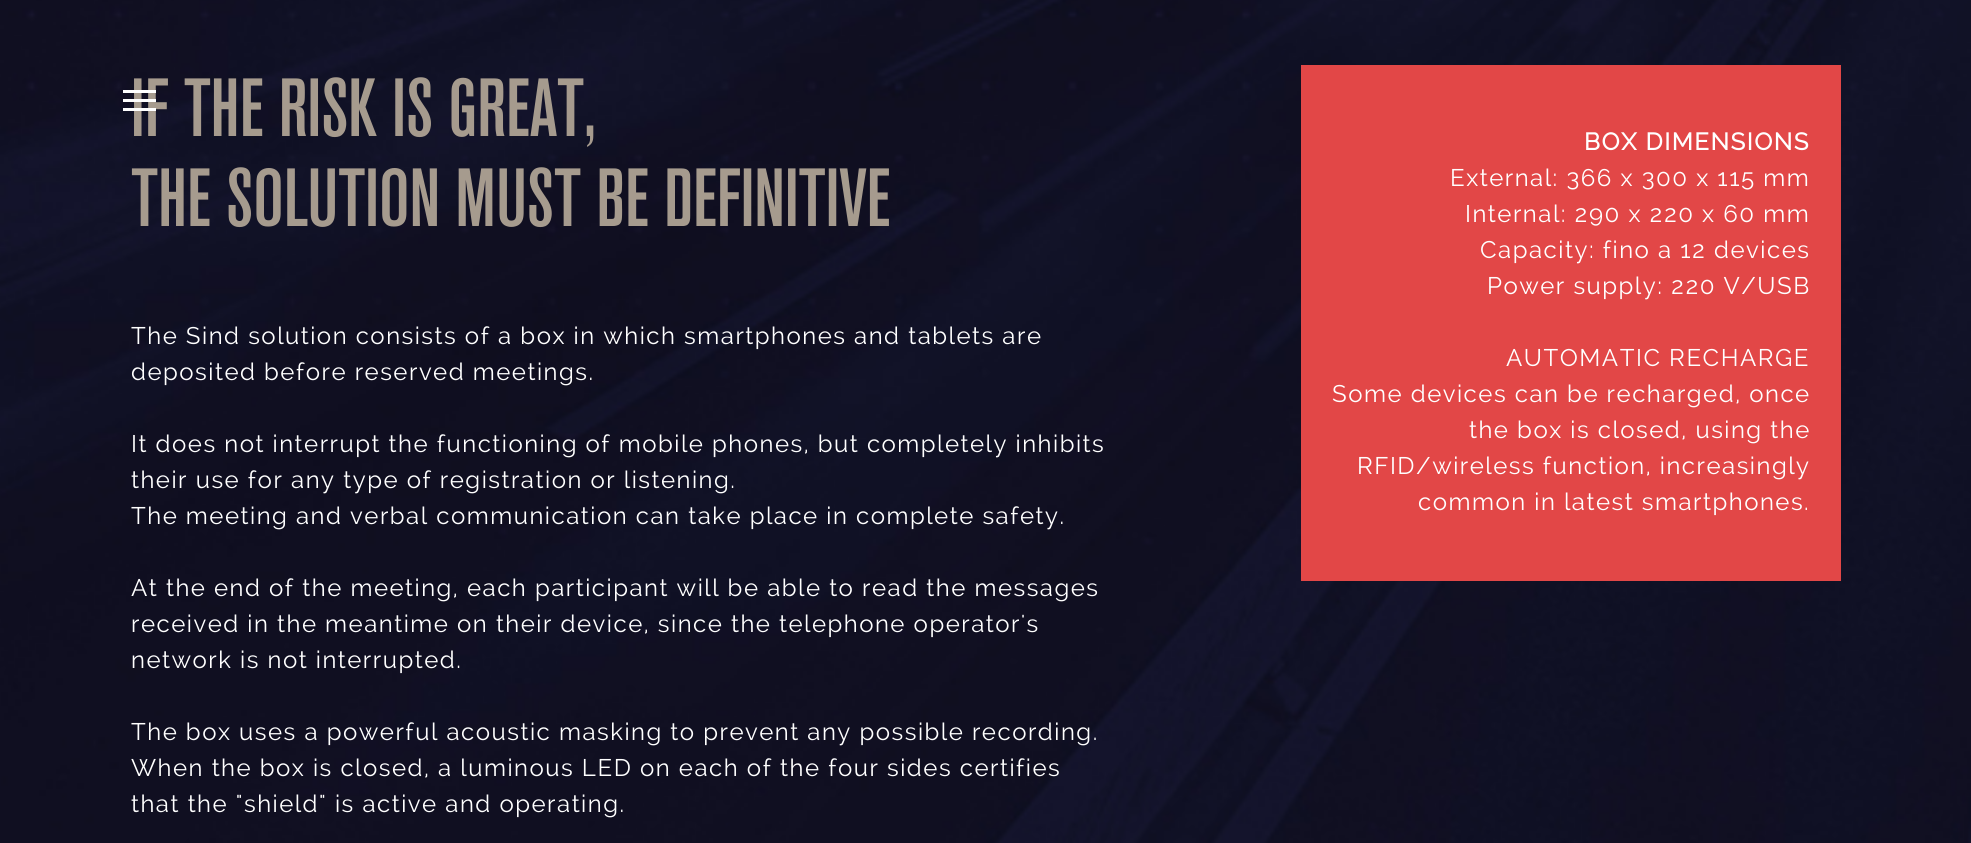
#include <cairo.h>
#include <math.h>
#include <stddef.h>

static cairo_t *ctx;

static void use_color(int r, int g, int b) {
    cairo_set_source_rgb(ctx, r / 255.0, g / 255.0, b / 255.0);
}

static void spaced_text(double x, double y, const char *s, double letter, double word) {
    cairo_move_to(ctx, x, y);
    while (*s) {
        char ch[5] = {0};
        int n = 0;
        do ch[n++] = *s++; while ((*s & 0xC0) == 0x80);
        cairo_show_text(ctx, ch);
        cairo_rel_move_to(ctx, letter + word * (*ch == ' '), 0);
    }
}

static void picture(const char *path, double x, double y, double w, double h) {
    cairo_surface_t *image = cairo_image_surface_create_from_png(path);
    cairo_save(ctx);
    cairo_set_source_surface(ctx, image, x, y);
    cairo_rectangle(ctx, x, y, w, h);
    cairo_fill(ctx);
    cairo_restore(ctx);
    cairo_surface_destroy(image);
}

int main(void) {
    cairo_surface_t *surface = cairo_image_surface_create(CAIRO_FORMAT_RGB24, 1971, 843);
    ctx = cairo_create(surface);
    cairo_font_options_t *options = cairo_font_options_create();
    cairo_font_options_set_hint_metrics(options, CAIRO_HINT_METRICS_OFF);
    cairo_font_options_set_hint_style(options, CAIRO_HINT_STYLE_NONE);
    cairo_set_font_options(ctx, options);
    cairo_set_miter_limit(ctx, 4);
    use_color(255, 255, 255);
    cairo_paint(ctx);
    picture("img1.png", 0, 0, 1971, 843);
    cairo_select_font_face(ctx, "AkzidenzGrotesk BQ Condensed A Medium", CAIRO_FONT_SLANT_NORMAL, CAIRO_FONT_WEIGHT_NORMAL);
    cairo_set_font_size(ctx, 81.6);
    use_color(166, 155, 142);
    cairo_move_to(ctx, 131, 136);
    cairo_show_text(ctx, "IF THE RISK IS GREAT,");
    cairo_move_to(ctx, 131, 226);
    cairo_show_text(ctx, "THE SOLUTION MUST BE DEFINITIVE");
    cairo_select_font_face(ctx, "Raleway", CAIRO_FONT_SLANT_NORMAL, CAIRO_FONT_WEIGHT_NORMAL);
    cairo_set_font_size(ctx, 24);
    use_color(255, 255, 255);
    spaced_text(131, 344, "The Sind solution consists of a box in which smartphones and tablets are", 1.5, 0);
    spaced_text(131, 380, "deposited before reserved meetings.", 1.5, 0);
    spaced_text(131, 452, "It does not interrupt the functioning of mobile phones, but completely inhibits", 1.5, 0);
    spaced_text(131, 488, "their use for any type of registration or listening.", 1.5, 0);
    spaced_text(131, 524, "The meeting and verbal communication can take place in complete safety.", 1.5, 0);
    spaced_text(131, 596, "At the end of the meeting, each participant will be able to read the messages", 1.5, 0);
    spaced_text(131, 632, "received in the meantime on their device, since the telephone operator's", 1.5, 0);
    spaced_text(131, 668, "network is not interrupted.", 1.5, 0);
    spaced_text(131, 740, "The box uses a powerful acoustic masking to prevent any possible recording.", 1.5, 0);
    spaced_text(131, 776, "When the box is closed, a luminous LED on each of the four sides certifies", 1.5, 0);
    spaced_text(131, 812, "that the \"shield\" is active and operating.", 1.5, 0);
    use_color(226, 71, 71);
    cairo_rectangle(ctx, 1301, 65, 540, 516);
    cairo_fill(ctx);
    cairo_select_font_face(ctx, "Raleway", CAIRO_FONT_SLANT_NORMAL, CAIRO_FONT_WEIGHT_BOLD);
    use_color(255, 255, 255);
    spaced_text(1584, 150, "BOX DIMENSIONS", 1.5, 0);
    cairo_select_font_face(ctx, "Raleway", CAIRO_FONT_SLANT_NORMAL, CAIRO_FONT_WEIGHT_NORMAL);
    spaced_text(1450, 186, "External: 366 x 300 x 115 mm", 1.5, 0);
    spaced_text(1465, 222, "Internal: 290 x 220 x 60 mm", 1.5, 0);
    spaced_text(1480, 258, "Capacity: fino a 12 devices", 1.5, 0);
    spaced_text(1487, 294, "Power supply: 220 V/USB", 1.5, 0);
    spaced_text(1506, 366, "AUTOMATIC RECHARGE", 1.5, 0);
    spaced_text(1332, 402, "Some devices can be recharged, once", 1.5, 0);
    spaced_text(1469, 438, "the box is closed, using the", 1.5, 0);
    spaced_text(1357, 474, "RFID/wireless function, increasingly", 1.5, 0);
    spaced_text(1418, 510, "common in latest smartphones.", 1.5, 0);
    cairo_rectangle(ctx, 123, 99, 33, 3);
    cairo_fill(ctx);
    cairo_rectangle(ctx, 123, 90, 33, 3);
    cairo_fill(ctx);
    cairo_rectangle(ctx, 123, 108, 33, 3);
    cairo_fill(ctx);
    cairo_surface_write_to_png(surface, "result.png");
    cairo_font_options_destroy(options);
    cairo_destroy(ctx);
    cairo_surface_destroy(surface);
    return 0;
}
